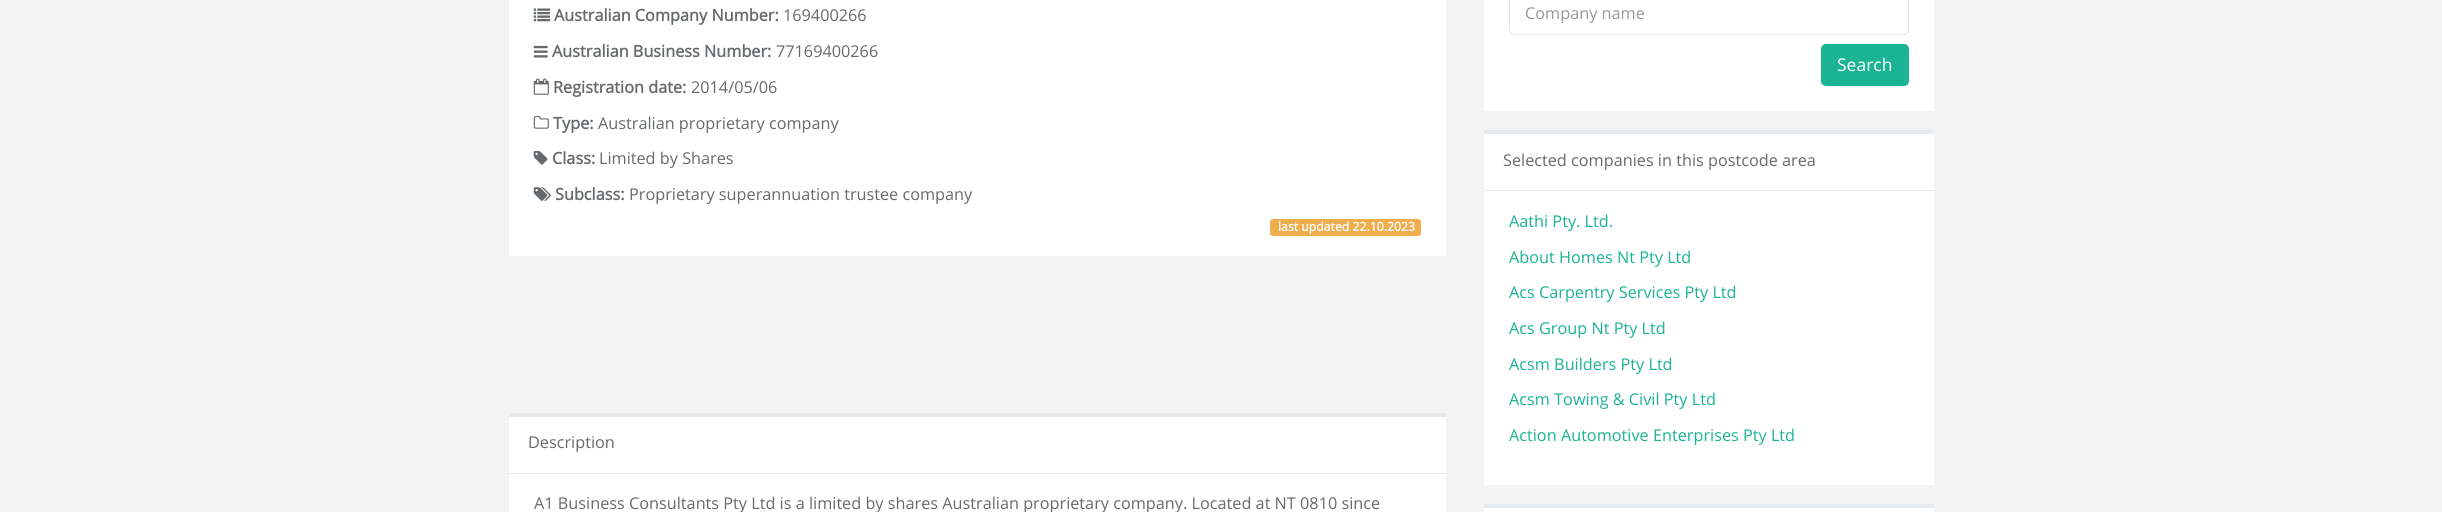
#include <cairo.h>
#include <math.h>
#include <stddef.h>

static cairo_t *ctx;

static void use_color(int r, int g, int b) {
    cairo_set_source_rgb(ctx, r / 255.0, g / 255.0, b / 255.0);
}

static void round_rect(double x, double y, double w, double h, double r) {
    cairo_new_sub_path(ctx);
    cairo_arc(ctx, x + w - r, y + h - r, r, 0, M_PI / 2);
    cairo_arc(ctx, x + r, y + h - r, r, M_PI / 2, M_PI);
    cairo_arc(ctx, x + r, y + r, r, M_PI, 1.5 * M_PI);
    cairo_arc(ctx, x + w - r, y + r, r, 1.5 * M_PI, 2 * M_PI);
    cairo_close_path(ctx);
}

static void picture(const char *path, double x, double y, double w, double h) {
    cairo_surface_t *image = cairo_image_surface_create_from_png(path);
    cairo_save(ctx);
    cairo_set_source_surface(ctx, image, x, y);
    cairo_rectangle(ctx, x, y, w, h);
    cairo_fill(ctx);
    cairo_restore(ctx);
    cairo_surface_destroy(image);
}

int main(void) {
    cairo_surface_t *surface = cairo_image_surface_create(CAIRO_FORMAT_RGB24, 2442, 512);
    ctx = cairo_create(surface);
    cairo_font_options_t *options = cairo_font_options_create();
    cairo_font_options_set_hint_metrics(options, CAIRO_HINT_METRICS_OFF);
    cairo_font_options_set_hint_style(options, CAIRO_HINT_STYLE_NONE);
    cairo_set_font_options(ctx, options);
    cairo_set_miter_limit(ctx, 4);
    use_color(243, 243, 244);
    cairo_paint(ctx);
    use_color(255, 255, 255);
    cairo_rectangle(ctx, 509, 0, 937, 256);
    cairo_fill(ctx);
    picture("img1.png", 533, 8, 17, 14);
    cairo_select_font_face(ctx, "Open Sans", CAIRO_FONT_SLANT_NORMAL, CAIRO_FONT_WEIGHT_BOLD);
    cairo_set_font_size(ctx, 16.25);
    use_color(103, 106, 108);
    cairo_move_to(ctx, 554, 21);
    cairo_show_text(ctx, "Australian Company Number:");
    cairo_select_font_face(ctx, "Open Sans", CAIRO_FONT_SLANT_NORMAL, CAIRO_FONT_WEIGHT_NORMAL);
    cairo_move_to(ctx, 783, 21);
    cairo_show_text(ctx, "169400266");
    picture("img2.png", 533, 45, 15, 13);
    cairo_select_font_face(ctx, "Open Sans", CAIRO_FONT_SLANT_NORMAL, CAIRO_FONT_WEIGHT_BOLD);
    cairo_move_to(ctx, 552, 57);
    cairo_show_text(ctx, "Australian Business Number:");
    cairo_select_font_face(ctx, "Open Sans", CAIRO_FONT_SLANT_NORMAL, CAIRO_FONT_WEIGHT_NORMAL);
    cairo_move_to(ctx, 776, 57);
    cairo_show_text(ctx, "77169400266");
    picture("img3.png", 533, 78, 16, 17);
    cairo_select_font_face(ctx, "Open Sans", CAIRO_FONT_SLANT_NORMAL, CAIRO_FONT_WEIGHT_BOLD);
    cairo_move_to(ctx, 553, 93);
    cairo_show_text(ctx, "Registration date:");
    cairo_select_font_face(ctx, "Open Sans", CAIRO_FONT_SLANT_NORMAL, CAIRO_FONT_WEIGHT_NORMAL);
    cairo_move_to(ctx, 691, 93);
    cairo_show_text(ctx, "2014/05/06");
    picture("img4.png", 533, 116, 16, 13);
    cairo_select_font_face(ctx, "Open Sans", CAIRO_FONT_SLANT_NORMAL, CAIRO_FONT_WEIGHT_BOLD);
    cairo_move_to(ctx, 553, 129);
    cairo_show_text(ctx, "Type:");
    cairo_select_font_face(ctx, "Open Sans", CAIRO_FONT_SLANT_NORMAL, CAIRO_FONT_WEIGHT_NORMAL);
    cairo_move_to(ctx, 598, 129);
    cairo_show_text(ctx, "Australian proprietary company");
    picture("img5.png", 533, 151, 15, 14);
    cairo_select_font_face(ctx, "Open Sans", CAIRO_FONT_SLANT_NORMAL, CAIRO_FONT_WEIGHT_BOLD);
    cairo_move_to(ctx, 552, 164);
    cairo_show_text(ctx, "Class:");
    cairo_select_font_face(ctx, "Open Sans", CAIRO_FONT_SLANT_NORMAL, CAIRO_FONT_WEIGHT_NORMAL);
    cairo_move_to(ctx, 599, 164);
    cairo_show_text(ctx, "Limited by Shares");
    picture("img6.png", 533, 187, 18, 14);
    cairo_select_font_face(ctx, "Open Sans", CAIRO_FONT_SLANT_NORMAL, CAIRO_FONT_WEIGHT_BOLD);
    cairo_move_to(ctx, 555, 200);
    cairo_show_text(ctx, "Subclass:");
    cairo_select_font_face(ctx, "Open Sans", CAIRO_FONT_SLANT_NORMAL, CAIRO_FONT_WEIGHT_NORMAL);
    cairo_move_to(ctx, 629, 200);
    cairo_show_text(ctx, "Proprietary superannuation trustee company");
    use_color(240, 173, 78);
    round_rect(1270, 219, 151, 17, 3);
    cairo_fill(ctx);
    cairo_select_font_face(ctx, "Open Sans", CAIRO_FONT_SLANT_NORMAL, CAIRO_FONT_WEIGHT_BOLD);
    cairo_set_font_size(ctx, 12.25);
    use_color(255, 255, 255);
    cairo_move_to(ctx, 1278, 231);
    cairo_show_text(ctx, "last updated 22.10.2023");
    cairo_rectangle(ctx, 509, 417, 937, 56);
    cairo_fill(ctx);
    use_color(231, 234, 236);
    cairo_rectangle(ctx, 509, 413, 937, 4);
    cairo_fill(ctx);
    cairo_select_font_face(ctx, "Open Sans", CAIRO_FONT_SLANT_NORMAL, CAIRO_FONT_WEIGHT_NORMAL);
    cairo_set_font_size(ctx, 16.25);
    use_color(103, 106, 108);
    cairo_move_to(ctx, 528, 448);
    cairo_show_text(ctx, "Description");
    use_color(255, 255, 255);
    cairo_rectangle(ctx, 509, 474, 937, 38);
    cairo_fill(ctx);
    use_color(231, 234, 236);
    cairo_rectangle(ctx, 509, 473, 937, 1);
    cairo_fill(ctx);
    use_color(103, 106, 108);
    cairo_move_to(ctx, 534, 509);
    cairo_show_text(ctx, "A1 Business Consultants Pty Ltd is a limited by shares Australian proprietary company. Located at NT 0810 since");
    use_color(255, 255, 255);
    cairo_rectangle(ctx, 1484, 0, 450, 111);
    cairo_fill(ctx);
    round_rect(1509.5, -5.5, 399, 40, 4.5);
    use_color(231, 234, 236);
    cairo_set_line_width(ctx, 1);
    cairo_stroke(ctx);
    use_color(153, 153, 153);
    cairo_move_to(ctx, 1525, 19);
    cairo_show_text(ctx, "Company name");
    use_color(26, 179, 148);
    round_rect(1821.5, 44.5, 87, 41, 4.5);
    cairo_fill_preserve(ctx);
    cairo_stroke(ctx);
    cairo_set_font_size(ctx, 17.5);
    use_color(255, 255, 255);
    cairo_move_to(ctx, 1837, 71);
    cairo_show_text(ctx, "Search");
    cairo_rectangle(ctx, 1484, 134, 450, 56);
    cairo_fill(ctx);
    use_color(231, 234, 236);
    cairo_rectangle(ctx, 1484, 130, 450, 4);
    cairo_fill(ctx);
    cairo_set_font_size(ctx, 16.25);
    use_color(103, 106, 108);
    cairo_move_to(ctx, 1503, 166);
    cairo_show_text(ctx, "Selected companies in this postcode area");
    use_color(255, 255, 255);
    cairo_rectangle(ctx, 1484, 191, 450, 294);
    cairo_fill(ctx);
    use_color(231, 234, 236);
    cairo_rectangle(ctx, 1484, 190, 450, 1);
    cairo_fill(ctx);
    use_color(26, 179, 148);
    cairo_move_to(ctx, 1509, 227);
    cairo_show_text(ctx, "Aathi Pty. Ltd.");
    cairo_move_to(ctx, 1509, 263);
    cairo_show_text(ctx, "About Homes Nt Pty Ltd");
    cairo_move_to(ctx, 1509, 298);
    cairo_show_text(ctx, "Acs Carpentry Services Pty Ltd");
    cairo_move_to(ctx, 1509, 334);
    cairo_show_text(ctx, "Acs Group Nt Pty Ltd");
    cairo_move_to(ctx, 1509, 370);
    cairo_show_text(ctx, "Acsm Builders Pty Ltd");
    cairo_move_to(ctx, 1509, 405);
    cairo_show_text(ctx, "Acsm Towing & Civil Pty Ltd");
    cairo_move_to(ctx, 1509, 441);
    cairo_show_text(ctx, "Action Automotive Enterprises Pty Ltd");
    use_color(255, 255, 255);
    cairo_rectangle(ctx, 1484, 508, 450, 4);
    cairo_fill(ctx);
    use_color(231, 234, 236);
    cairo_rectangle(ctx, 1484, 504, 450, 4);
    cairo_fill(ctx);
    cairo_surface_write_to_png(surface, "result.png");
    cairo_font_options_destroy(options);
    cairo_destroy(ctx);
    cairo_surface_destroy(surface);
    return 0;
}
